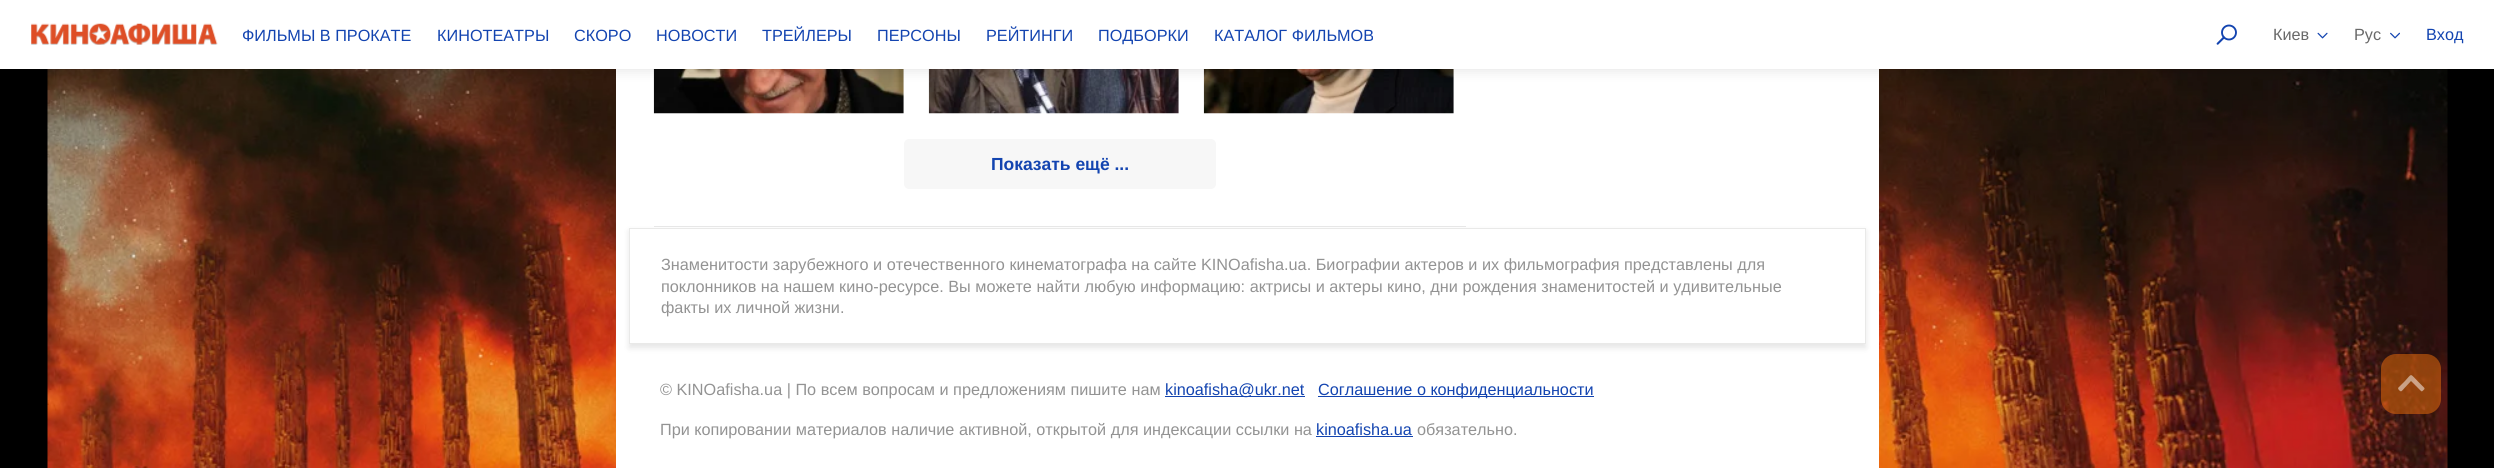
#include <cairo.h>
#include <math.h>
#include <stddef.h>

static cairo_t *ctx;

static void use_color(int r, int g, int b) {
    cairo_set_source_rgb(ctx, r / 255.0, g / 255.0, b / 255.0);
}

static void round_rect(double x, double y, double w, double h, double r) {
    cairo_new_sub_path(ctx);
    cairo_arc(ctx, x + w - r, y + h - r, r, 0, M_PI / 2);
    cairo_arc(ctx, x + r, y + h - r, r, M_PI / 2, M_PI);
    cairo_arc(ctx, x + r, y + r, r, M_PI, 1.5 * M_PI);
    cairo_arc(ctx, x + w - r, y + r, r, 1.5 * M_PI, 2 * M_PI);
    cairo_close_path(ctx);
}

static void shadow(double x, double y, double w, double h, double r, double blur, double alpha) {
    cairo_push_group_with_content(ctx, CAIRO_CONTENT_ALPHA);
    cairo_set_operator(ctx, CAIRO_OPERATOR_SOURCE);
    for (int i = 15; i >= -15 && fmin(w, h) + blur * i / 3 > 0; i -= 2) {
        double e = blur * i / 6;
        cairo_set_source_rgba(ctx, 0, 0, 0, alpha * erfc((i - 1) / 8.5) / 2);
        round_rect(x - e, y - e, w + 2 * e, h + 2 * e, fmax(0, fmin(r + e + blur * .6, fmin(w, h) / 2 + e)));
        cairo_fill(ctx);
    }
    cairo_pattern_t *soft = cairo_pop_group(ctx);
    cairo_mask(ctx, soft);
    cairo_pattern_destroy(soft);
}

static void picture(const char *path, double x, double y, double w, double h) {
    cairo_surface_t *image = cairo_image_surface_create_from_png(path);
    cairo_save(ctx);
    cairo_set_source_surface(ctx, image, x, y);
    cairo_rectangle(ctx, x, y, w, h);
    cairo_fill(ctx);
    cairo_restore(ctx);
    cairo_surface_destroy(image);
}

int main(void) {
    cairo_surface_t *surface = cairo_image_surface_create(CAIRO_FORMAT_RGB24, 2494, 468);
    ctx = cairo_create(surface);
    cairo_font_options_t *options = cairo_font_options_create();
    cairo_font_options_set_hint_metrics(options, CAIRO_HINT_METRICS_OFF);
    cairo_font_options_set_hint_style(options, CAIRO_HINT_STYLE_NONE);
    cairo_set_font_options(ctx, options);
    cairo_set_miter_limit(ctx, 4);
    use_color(0, 0, 0);
    cairo_paint(ctx);
    picture("img8.png", 47, 69, 2401, 399);
    use_color(255, 255, 255);
    cairo_rectangle(ctx, 616, 69, 1263, 399);
    cairo_fill(ctx);
    picture("img5.png", 653, 69, 251, 45);
    picture("img6.png", 928, 69, 251, 45);
    picture("img7.png", 1203, 69, 251, 45);
    use_color(0, 0, 0);
    shadow(0, 3, 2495, 68, 0, 6, 0.1);
    use_color(255, 255, 255);
    cairo_rectangle(ctx, 0, 0, 2494, 69);
    cairo_fill(ctx);
    picture("img1.png", 31, 23, 187, 22);
    cairo_select_font_face(ctx, "Liberation Sans", CAIRO_FONT_SLANT_NORMAL, CAIRO_FONT_WEIGHT_NORMAL);
    cairo_set_font_size(ctx, 16.25);
    use_color(19, 68, 176);
    cairo_move_to(ctx, 242, 41);
    cairo_show_text(ctx, "ФИЛЬМЫ В ПРОКАТЕ");
    cairo_move_to(ctx, 437, 41);
    cairo_show_text(ctx, "КИНОТЕАТРЫ");
    cairo_move_to(ctx, 574, 41);
    cairo_show_text(ctx, "СКОРО");
    cairo_move_to(ctx, 656, 41);
    cairo_show_text(ctx, "НОВОСТИ");
    cairo_move_to(ctx, 762, 41);
    cairo_show_text(ctx, "ТРЕЙЛЕРЫ");
    cairo_move_to(ctx, 877, 41);
    cairo_show_text(ctx, "ПЕРСОНЫ");
    cairo_move_to(ctx, 986, 41);
    cairo_show_text(ctx, "РЕЙТИНГИ");
    cairo_move_to(ctx, 1098, 41);
    cairo_show_text(ctx, "ПОДБОРКИ");
    cairo_move_to(ctx, 1214, 41);
    cairo_show_text(ctx, "КАТАЛОГ ФИЛЬМОВ");
    picture("img2.png", 2216, 24, 21, 21);
    use_color(105, 105, 105);
    cairo_move_to(ctx, 2273, 40);
    cairo_show_text(ctx, "Киев");
    picture("img3.png", 2317, 32, 11, 7);
    cairo_move_to(ctx, 2354, 40);
    cairo_show_text(ctx, "Рус");
    picture("img4.png", 2390, 32, 10, 7);
    use_color(19, 68, 176);
    cairo_move_to(ctx, 2426, 40);
    cairo_show_text(ctx, "Вход");
    cairo_save(ctx);
    cairo_set_fill_rule(ctx, CAIRO_FILL_RULE_EVEN_ODD);
    cairo_new_path(ctx);
    cairo_move_to(ctx, 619, 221);
    cairo_line_to(ctx, 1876, 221);
    cairo_line_to(ctx, 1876, 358);
    cairo_line_to(ctx, 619, 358);
    cairo_close_path(ctx);
    cairo_move_to(ctx, 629, 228);
    cairo_line_to(ctx, 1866, 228);
    cairo_line_to(ctx, 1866, 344);
    cairo_line_to(ctx, 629, 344);
    cairo_close_path(ctx);
    cairo_clip(ctx);
    use_color(0, 0, 0);
    shadow(629, 231, 1237, 117, 0, 3, 0.1);
    cairo_restore(ctx);
    use_color(231, 231, 231);
    cairo_rectangle(ctx, 654, 226, 812, 1);
    cairo_fill(ctx);
    use_color(247, 247, 247);
    round_rect(904, 139, 312, 50, 5);
    cairo_fill(ctx);
    cairo_select_font_face(ctx, "Liberation Sans", CAIRO_FONT_SLANT_NORMAL, CAIRO_FONT_WEIGHT_BOLD);
    cairo_set_font_size(ctx, 17.5);
    use_color(19, 68, 176);
    cairo_move_to(ctx, 991, 170);
    cairo_show_text(ctx, "Показать ещё ...");
    cairo_rectangle(ctx, 629.5, 228.5, 1236, 115);
    use_color(233, 233, 232);
    cairo_set_line_width(ctx, 1);
    cairo_stroke(ctx);
    cairo_select_font_face(ctx, "Liberation Sans", CAIRO_FONT_SLANT_NORMAL, CAIRO_FONT_WEIGHT_NORMAL);
    cairo_set_font_size(ctx, 16.25);
    use_color(147, 147, 147);
    cairo_move_to(ctx, 661, 270);
    cairo_show_text(ctx, "Знаменитости зарубежного и отечественного кинематографа на сайте KINOafisha.ua. Биографии актеров и их фильмография представлены для");
    cairo_move_to(ctx, 661, 292);
    cairo_show_text(ctx, "поклонников на нашем кино-ресурсе. Вы можете найти любую информацию: актрисы и актеры кино, дни рождения знаменитостей и удивительные");
    cairo_move_to(ctx, 661, 313);
    cairo_show_text(ctx, "факты их личной жизни.");
    cairo_move_to(ctx, 660, 395);
    cairo_show_text(ctx, "© KINOafisha.ua | По всем вопросам и предложениям пишите нам");
    use_color(19, 68, 176);
    cairo_rectangle(ctx, 1165, 396, 140, 1);
    cairo_fill(ctx);
    cairo_move_to(ctx, 1165, 395);
    cairo_show_text(ctx, "kinoafisha@ukr.net");
    cairo_rectangle(ctx, 1318, 396, 276, 1);
    cairo_fill(ctx);
    cairo_move_to(ctx, 1318, 395);
    cairo_show_text(ctx, "Соглашение о конфиденциальности");
    use_color(147, 147, 147);
    cairo_move_to(ctx, 660, 435);
    cairo_show_text(ctx, "При копировании материалов наличие активной, открытой для индексации ссылки на");
    use_color(19, 68, 176);
    cairo_move_to(ctx, 1316, 435);
    cairo_show_text(ctx, "kinoafisha.ua");
    cairo_rectangle(ctx, 1316, 436, 97, 1);
    cairo_fill(ctx);
    use_color(147, 147, 147);
    cairo_move_to(ctx, 1417, 435);
    cairo_show_text(ctx, "обязательно.");
    cairo_set_source_rgba(ctx, 0.949, 0.447, 0.047, 0.5);
    round_rect(2381, 354, 60, 60, 15);
    cairo_fill(ctx);
    cairo_set_source_rgba(ctx, 1, 1, 1, 0.5);
    cairo_set_fill_rule(ctx, CAIRO_FILL_RULE_EVEN_ODD);
    cairo_new_path(ctx);
    cairo_move_to(ctx, 2422.5, 391);
    cairo_curve_to(ctx, 2425.5, 388.5, 2425, 388.5, 2422, 385.5);
    cairo_line_to(ctx, 2418, 381.5);
    cairo_curve_to(ctx, 2409.5, 373, 2412.5, 373, 2404.5, 381.5);
    cairo_line_to(ctx, 2398, 388);
    cairo_line_to(ctx, 2398.5, 389.5);
    cairo_curve_to(ctx, 2401.5, 393, 2401.5, 391, 2405, 387.5);
    cairo_line_to(ctx, 2411, 381);
    cairo_line_to(ctx, 2421, 391);
    cairo_curve_to(ctx, 2421.5, 391.5, 2422, 391.5, 2422.5, 391);
    cairo_close_path(ctx);
    cairo_fill(ctx);
    cairo_surface_write_to_png(surface, "result.png");
    cairo_font_options_destroy(options);
    cairo_destroy(ctx);
    cairo_surface_destroy(surface);
    return 0;
}
